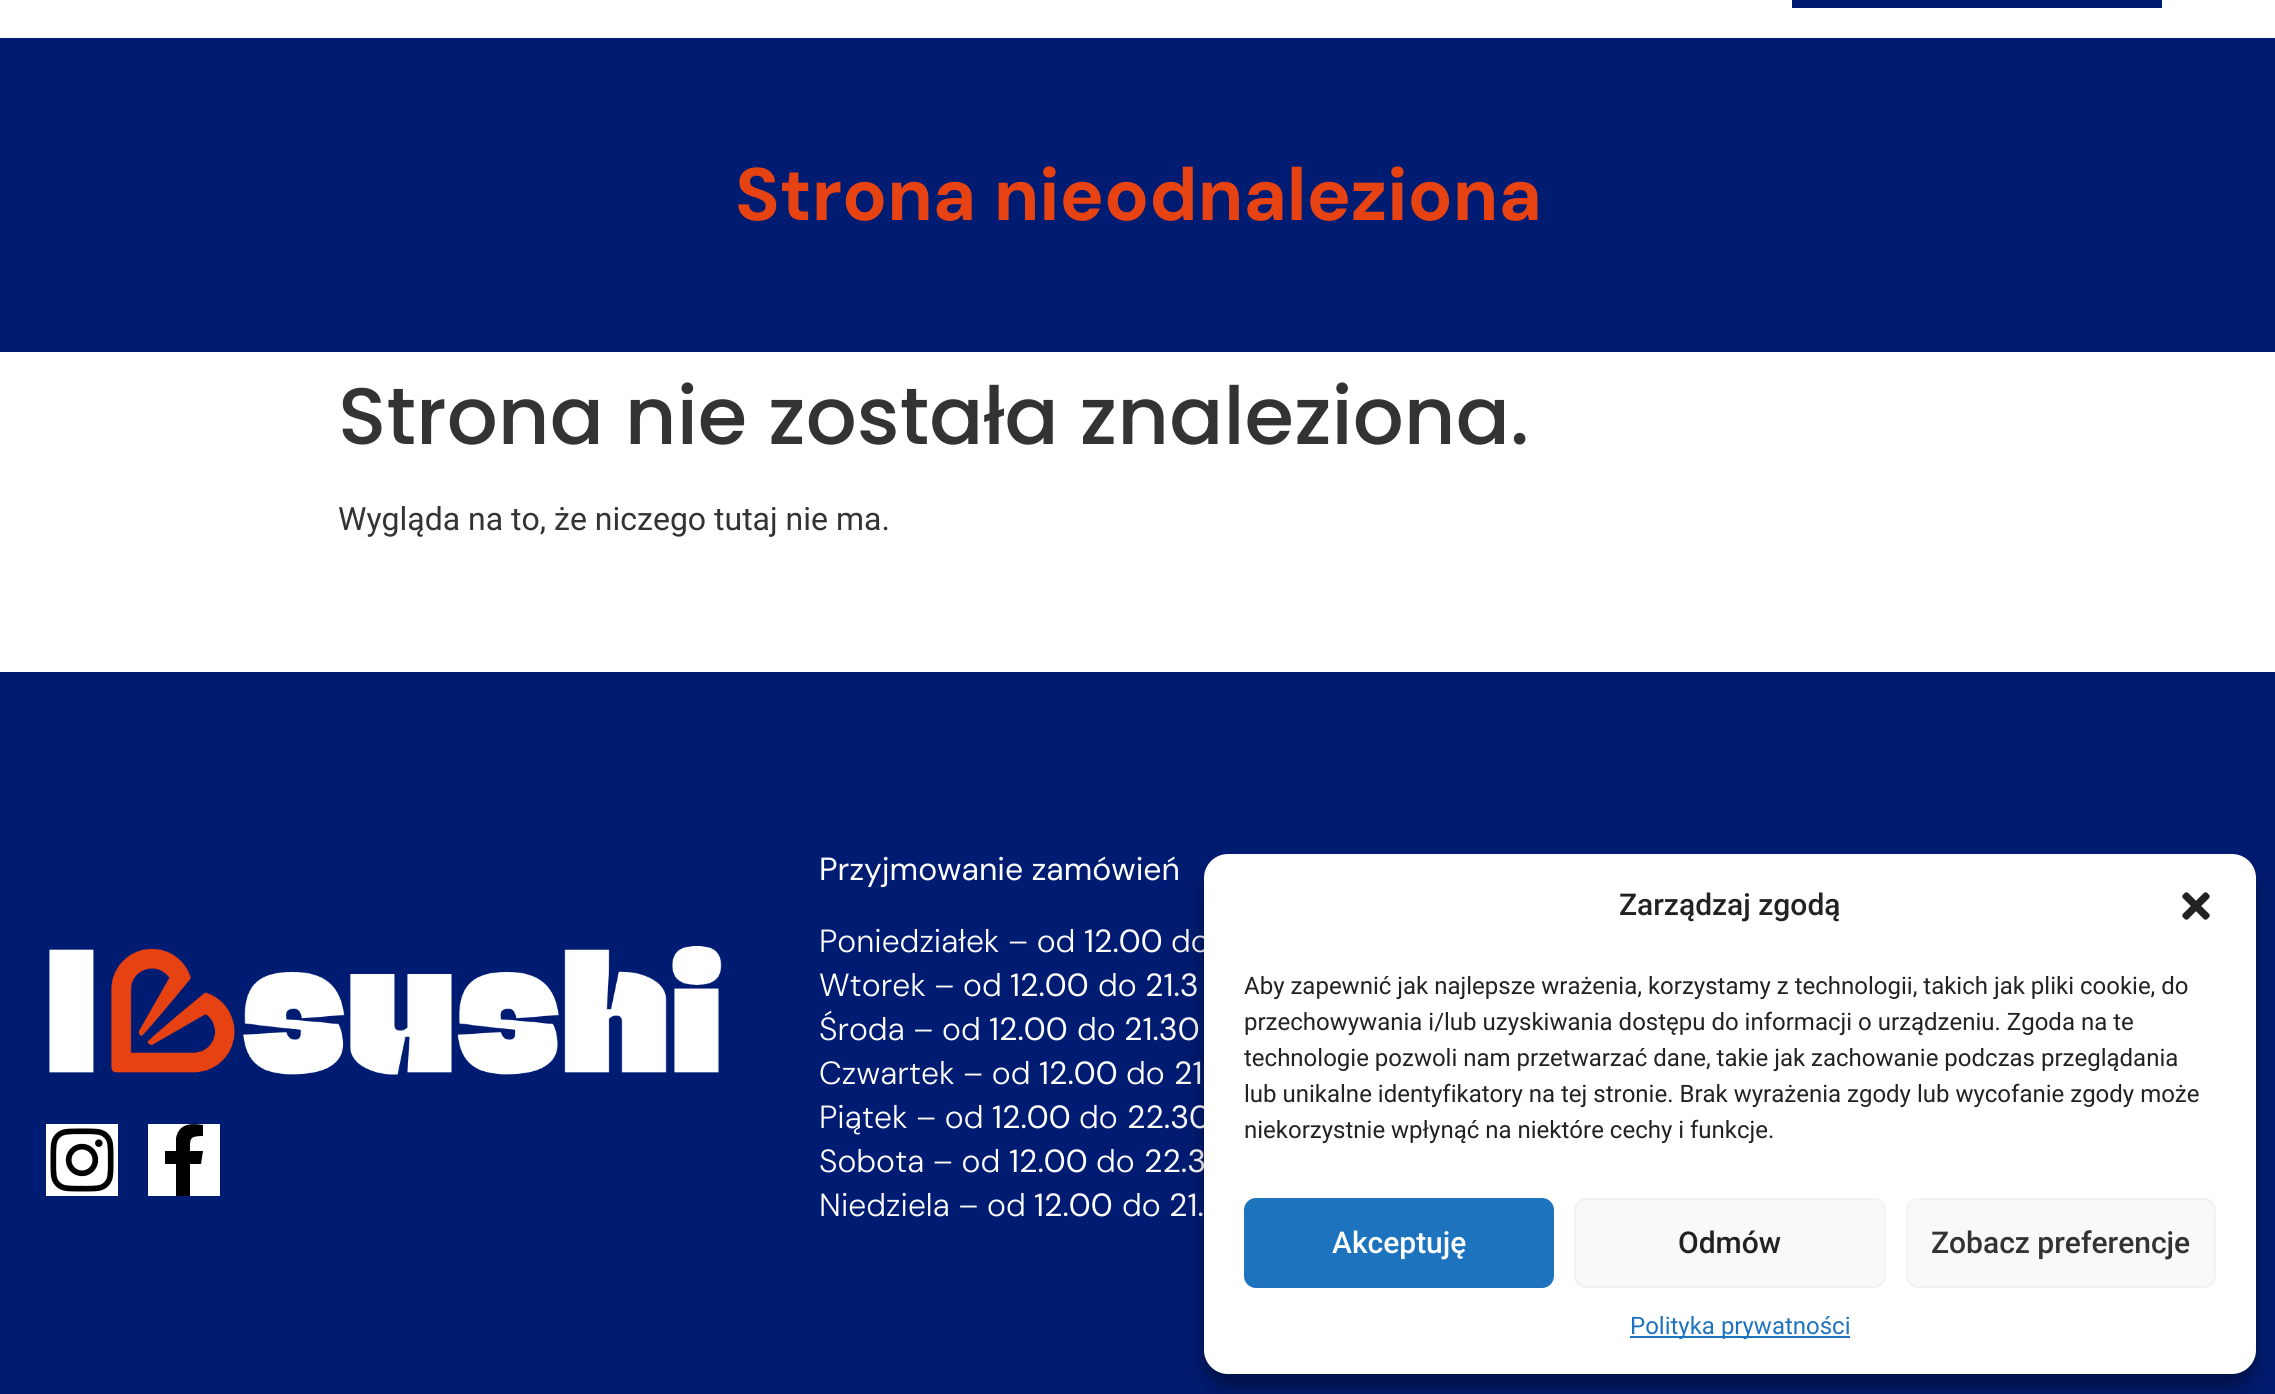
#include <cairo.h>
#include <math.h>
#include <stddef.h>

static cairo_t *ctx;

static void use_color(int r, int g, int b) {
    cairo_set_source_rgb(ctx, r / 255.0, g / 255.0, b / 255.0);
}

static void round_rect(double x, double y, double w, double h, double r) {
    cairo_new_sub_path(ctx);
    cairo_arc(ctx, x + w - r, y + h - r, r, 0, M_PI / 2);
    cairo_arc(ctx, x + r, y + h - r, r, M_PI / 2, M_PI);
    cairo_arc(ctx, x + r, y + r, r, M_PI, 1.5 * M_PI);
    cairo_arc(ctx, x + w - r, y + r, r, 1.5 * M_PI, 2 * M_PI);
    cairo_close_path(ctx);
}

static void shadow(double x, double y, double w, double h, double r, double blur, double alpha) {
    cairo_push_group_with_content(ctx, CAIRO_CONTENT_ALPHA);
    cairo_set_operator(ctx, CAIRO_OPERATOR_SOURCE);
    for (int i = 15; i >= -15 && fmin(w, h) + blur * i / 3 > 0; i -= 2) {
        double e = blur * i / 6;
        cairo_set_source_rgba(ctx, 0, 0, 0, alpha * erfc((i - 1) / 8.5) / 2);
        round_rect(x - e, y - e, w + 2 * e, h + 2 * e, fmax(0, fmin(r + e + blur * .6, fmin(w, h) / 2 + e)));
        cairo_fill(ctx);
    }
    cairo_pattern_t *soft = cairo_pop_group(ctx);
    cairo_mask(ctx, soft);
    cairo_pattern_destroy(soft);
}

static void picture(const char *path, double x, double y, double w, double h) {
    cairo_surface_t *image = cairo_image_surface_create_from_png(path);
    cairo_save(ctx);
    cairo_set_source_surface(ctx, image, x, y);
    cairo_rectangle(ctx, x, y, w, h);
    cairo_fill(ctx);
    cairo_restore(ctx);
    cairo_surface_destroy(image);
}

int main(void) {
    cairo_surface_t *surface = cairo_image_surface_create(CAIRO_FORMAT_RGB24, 2275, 1394);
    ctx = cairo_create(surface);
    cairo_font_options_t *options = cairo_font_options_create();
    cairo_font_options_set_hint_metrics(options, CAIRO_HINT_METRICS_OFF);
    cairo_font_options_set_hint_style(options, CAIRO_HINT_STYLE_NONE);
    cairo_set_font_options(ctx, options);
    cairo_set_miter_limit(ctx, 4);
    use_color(255, 255, 255);
    cairo_paint(ctx);
    use_color(0, 27, 114);
    cairo_rectangle(ctx, 1792, 0, 370, 8);
    cairo_fill(ctx);
    cairo_rectangle(ctx, 0, 38, 2275, 314);
    cairo_fill(ctx);
    cairo_select_font_face(ctx, "DM Sans", CAIRO_FONT_SLANT_NORMAL, CAIRO_FONT_WEIGHT_BOLD);
    cairo_set_font_size(ctx, 74);
    use_color(231, 66, 18);
    cairo_move_to(ctx, 735, 220);
    cairo_show_text(ctx, "Strona nieodnaleziona");
    cairo_select_font_face(ctx, "Poppins Medium", CAIRO_FONT_SLANT_NORMAL, CAIRO_FONT_WEIGHT_NORMAL);
    cairo_set_font_size(ctx, 80);
    use_color(51, 51, 51);
    cairo_move_to(ctx, 338, 444);
    cairo_show_text(ctx, "Strona nie została znaleziona.");
    cairo_select_font_face(ctx, "Roboto", CAIRO_FONT_SLANT_NORMAL, CAIRO_FONT_WEIGHT_NORMAL);
    cairo_set_font_size(ctx, 32);
    cairo_move_to(ctx, 338, 530);
    cairo_show_text(ctx, "Wygląda na to, że niczego tutaj nie ma.");
    use_color(0, 27, 114);
    cairo_rectangle(ctx, 0, 672, 2275, 722);
    cairo_fill(ctx);
    picture("img1.png", 49, 946, 673, 129);
    use_color(255, 255, 255);
    cairo_rectangle(ctx, 46, 1124, 72, 72);
    cairo_fill(ctx);
    picture("img2.png", 50, 1128, 64, 64);
    cairo_rectangle(ctx, 148, 1124, 72, 72);
    cairo_fill(ctx);
    use_color(0, 0, 0);
    cairo_new_path(ctx);
    cairo_move_to(ctx, 201, 1164);
    cairo_line_to(ctx, 203, 1151);
    cairo_line_to(ctx, 190, 1151);
    cairo_curve_to(ctx, 190, 1139, 189, 1136, 203, 1136);
    cairo_line_to(ctx, 203, 1125);
    cairo_curve_to(ctx, 192, 1123, 179, 1123, 176, 1138);
    cairo_line_to(ctx, 176, 1151);
    cairo_line_to(ctx, 165, 1151);
    cairo_line_to(ctx, 165, 1164);
    cairo_line_to(ctx, 176, 1164);
    cairo_line_to(ctx, 176, 1196);
    cairo_line_to(ctx, 190, 1196);
    cairo_line_to(ctx, 190, 1164);
    cairo_close_path(ctx);
    cairo_fill(ctx);
    cairo_select_font_face(ctx, "DM Sans", CAIRO_FONT_SLANT_NORMAL, CAIRO_FONT_WEIGHT_NORMAL);
    use_color(255, 255, 255);
    cairo_move_to(ctx, 819, 880);
    cairo_show_text(ctx, "Przyjmowanie zamówień");
    cairo_select_font_face(ctx, "DM Sans Light", CAIRO_FONT_SLANT_NORMAL, CAIRO_FONT_WEIGHT_NORMAL);
    cairo_move_to(ctx, 819, 952);
    cairo_show_text(ctx, "Poniedziałek – od");
    cairo_select_font_face(ctx, "DM Sans", CAIRO_FONT_SLANT_NORMAL, CAIRO_FONT_WEIGHT_NORMAL);
    cairo_move_to(ctx, 1084, 952);
    cairo_show_text(ctx, "12.00");
    cairo_select_font_face(ctx, "DM Sans Light", CAIRO_FONT_SLANT_NORMAL, CAIRO_FONT_WEIGHT_NORMAL);
    cairo_move_to(ctx, 1171, 952);
    cairo_show_text(ctx, "do");
    cairo_move_to(ctx, 819, 996);
    cairo_show_text(ctx, "Wtorek – od");
    cairo_select_font_face(ctx, "DM Sans", CAIRO_FONT_SLANT_NORMAL, CAIRO_FONT_WEIGHT_NORMAL);
    cairo_move_to(ctx, 1010, 996);
    cairo_show_text(ctx, "12.00");
    cairo_select_font_face(ctx, "DM Sans Light", CAIRO_FONT_SLANT_NORMAL, CAIRO_FONT_WEIGHT_NORMAL);
    cairo_move_to(ctx, 1098, 996);
    cairo_show_text(ctx, "do");
    cairo_select_font_face(ctx, "DM Sans", CAIRO_FONT_SLANT_NORMAL, CAIRO_FONT_WEIGHT_NORMAL);
    cairo_move_to(ctx, 1145, 996);
    cairo_show_text(ctx, "21.3");
    cairo_select_font_face(ctx, "DM Sans Light", CAIRO_FONT_SLANT_NORMAL, CAIRO_FONT_WEIGHT_NORMAL);
    cairo_move_to(ctx, 819, 1040);
    cairo_show_text(ctx, "Środa – od");
    cairo_select_font_face(ctx, "DM Sans", CAIRO_FONT_SLANT_NORMAL, CAIRO_FONT_WEIGHT_NORMAL);
    cairo_move_to(ctx, 989, 1040);
    cairo_show_text(ctx, "12.00");
    cairo_select_font_face(ctx, "DM Sans Light", CAIRO_FONT_SLANT_NORMAL, CAIRO_FONT_WEIGHT_NORMAL);
    cairo_move_to(ctx, 1077, 1040);
    cairo_show_text(ctx, "do");
    cairo_select_font_face(ctx, "DM Sans", CAIRO_FONT_SLANT_NORMAL, CAIRO_FONT_WEIGHT_NORMAL);
    cairo_move_to(ctx, 1124, 1040);
    cairo_show_text(ctx, "21.30");
    cairo_select_font_face(ctx, "DM Sans Light", CAIRO_FONT_SLANT_NORMAL, CAIRO_FONT_WEIGHT_NORMAL);
    cairo_move_to(ctx, 819, 1084);
    cairo_show_text(ctx, "Czwartek – od");
    cairo_select_font_face(ctx, "DM Sans", CAIRO_FONT_SLANT_NORMAL, CAIRO_FONT_WEIGHT_NORMAL);
    cairo_move_to(ctx, 1039, 1084);
    cairo_show_text(ctx, "12.00");
    cairo_select_font_face(ctx, "DM Sans Light", CAIRO_FONT_SLANT_NORMAL, CAIRO_FONT_WEIGHT_NORMAL);
    cairo_move_to(ctx, 1126, 1084);
    cairo_show_text(ctx, "do");
    cairo_select_font_face(ctx, "DM Sans", CAIRO_FONT_SLANT_NORMAL, CAIRO_FONT_WEIGHT_NORMAL);
    cairo_move_to(ctx, 1174, 1084);
    cairo_show_text(ctx, "21");
    cairo_select_font_face(ctx, "DM Sans Light", CAIRO_FONT_SLANT_NORMAL, CAIRO_FONT_WEIGHT_NORMAL);
    cairo_move_to(ctx, 819, 1128);
    cairo_show_text(ctx, "Piątek – od");
    cairo_select_font_face(ctx, "DM Sans", CAIRO_FONT_SLANT_NORMAL, CAIRO_FONT_WEIGHT_NORMAL);
    cairo_move_to(ctx, 992, 1128);
    cairo_show_text(ctx, "12.00");
    cairo_select_font_face(ctx, "DM Sans Light", CAIRO_FONT_SLANT_NORMAL, CAIRO_FONT_WEIGHT_NORMAL);
    cairo_move_to(ctx, 1079, 1128);
    cairo_show_text(ctx, "do");
    cairo_select_font_face(ctx, "DM Sans", CAIRO_FONT_SLANT_NORMAL, CAIRO_FONT_WEIGHT_NORMAL);
    cairo_move_to(ctx, 1127, 1128);
    cairo_show_text(ctx, "22.30");
    cairo_select_font_face(ctx, "DM Sans Light", CAIRO_FONT_SLANT_NORMAL, CAIRO_FONT_WEIGHT_NORMAL);
    cairo_move_to(ctx, 819, 1172);
    cairo_show_text(ctx, "Sobota – od");
    cairo_select_font_face(ctx, "DM Sans", CAIRO_FONT_SLANT_NORMAL, CAIRO_FONT_WEIGHT_NORMAL);
    cairo_move_to(ctx, 1009, 1172);
    cairo_show_text(ctx, "12.00");
    cairo_select_font_face(ctx, "DM Sans Light", CAIRO_FONT_SLANT_NORMAL, CAIRO_FONT_WEIGHT_NORMAL);
    cairo_move_to(ctx, 1096, 1172);
    cairo_show_text(ctx, "do");
    cairo_select_font_face(ctx, "DM Sans", CAIRO_FONT_SLANT_NORMAL, CAIRO_FONT_WEIGHT_NORMAL);
    cairo_move_to(ctx, 1144, 1172);
    cairo_show_text(ctx, "22.3");
    cairo_select_font_face(ctx, "DM Sans Light", CAIRO_FONT_SLANT_NORMAL, CAIRO_FONT_WEIGHT_NORMAL);
    cairo_move_to(ctx, 819, 1216);
    cairo_show_text(ctx, "Niedziela – od");
    cairo_select_font_face(ctx, "DM Sans", CAIRO_FONT_SLANT_NORMAL, CAIRO_FONT_WEIGHT_NORMAL);
    cairo_move_to(ctx, 1034, 1216);
    cairo_show_text(ctx, "12.00");
    cairo_select_font_face(ctx, "DM Sans Light", CAIRO_FONT_SLANT_NORMAL, CAIRO_FONT_WEIGHT_NORMAL);
    cairo_move_to(ctx, 1122, 1216);
    cairo_show_text(ctx, "do");
    cairo_select_font_face(ctx, "DM Sans", CAIRO_FONT_SLANT_NORMAL, CAIRO_FONT_WEIGHT_NORMAL);
    cairo_move_to(ctx, 1169, 1216);
    cairo_show_text(ctx, "21.");
    use_color(0, 0, 0);
    shadow(1204, 866, 1052, 520, 24, 6, 0.23);
    shadow(1204, 874, 1052, 520, 24, 20, 0.19);
    use_color(255, 255, 255);
    round_rect(1204, 854, 1052, 520, 24);
    cairo_fill(ctx);
    cairo_select_font_face(ctx, "Roboto Medium", CAIRO_FONT_SLANT_NORMAL, CAIRO_FONT_WEIGHT_NORMAL);
    cairo_set_font_size(ctx, 30);
    use_color(34, 34, 34);
    cairo_move_to(ctx, 1619, 915);
    cairo_show_text(ctx, "Zarządzaj zgodą");
    picture("img3.png", 2182, 892, 28, 28);
    cairo_select_font_face(ctx, "Roboto", CAIRO_FONT_SLANT_NORMAL, CAIRO_FONT_WEIGHT_NORMAL);
    cairo_set_font_size(ctx, 24);
    cairo_move_to(ctx, 1244, 994);
    cairo_show_text(ctx, "Aby zapewnić jak najlepsze wrażenia, korzystamy z technologii, takich jak pliki cookie, do");
    cairo_move_to(ctx, 1244, 1030);
    cairo_show_text(ctx, "przechowywania i/lub uzyskiwania dostępu do informacji o urządzeniu. Zgoda na te");
    cairo_move_to(ctx, 1244, 1066);
    cairo_show_text(ctx, "technologie pozwoli nam przetwarzać dane, takie jak zachowanie podczas przeglądania");
    cairo_move_to(ctx, 1244, 1102);
    cairo_show_text(ctx, "lub unikalne identyfikatory na tej stronie. Brak wyrażenia zgody lub wycofanie zgody może");
    cairo_move_to(ctx, 1244, 1138);
    cairo_show_text(ctx, "niekorzystnie wpłynąć na niektóre cechy i funkcje.");
    use_color(30, 115, 190);
    round_rect(1245, 1199, 308, 88, 11);
    cairo_fill_preserve(ctx);
    cairo_stroke(ctx);
    cairo_select_font_face(ctx, "Roboto Medium", CAIRO_FONT_SLANT_NORMAL, CAIRO_FONT_WEIGHT_NORMAL);
    cairo_set_font_size(ctx, 30);
    use_color(255, 255, 255);
    cairo_move_to(ctx, 1332, 1253);
    cairo_show_text(ctx, "Akceptuję");
    use_color(249, 249, 249);
    round_rect(1575, 1199, 310, 88, 11);
    cairo_fill_preserve(ctx);
    use_color(242, 242, 242);
    cairo_stroke(ctx);
    use_color(34, 34, 34);
    cairo_move_to(ctx, 1678, 1253);
    cairo_show_text(ctx, "Odmów");
    use_color(249, 249, 249);
    round_rect(1907, 1199, 308, 88, 11);
    cairo_fill_preserve(ctx);
    use_color(242, 242, 242);
    cairo_stroke(ctx);
    use_color(51, 51, 51);
    cairo_move_to(ctx, 1931, 1253);
    cairo_show_text(ctx, "Zobacz preferencje");
    use_color(30, 115, 190);
    cairo_rectangle(ctx, 1630, 1336, 220, 2);
    cairo_fill(ctx);
    cairo_select_font_face(ctx, "Roboto", CAIRO_FONT_SLANT_NORMAL, CAIRO_FONT_WEIGHT_NORMAL);
    cairo_set_font_size(ctx, 24);
    cairo_move_to(ctx, 1630, 1334);
    cairo_show_text(ctx, "Polityka prywatności");
    cairo_surface_write_to_png(surface, "result.png");
    cairo_font_options_destroy(options);
    cairo_destroy(ctx);
    cairo_surface_destroy(surface);
    return 0;
}
